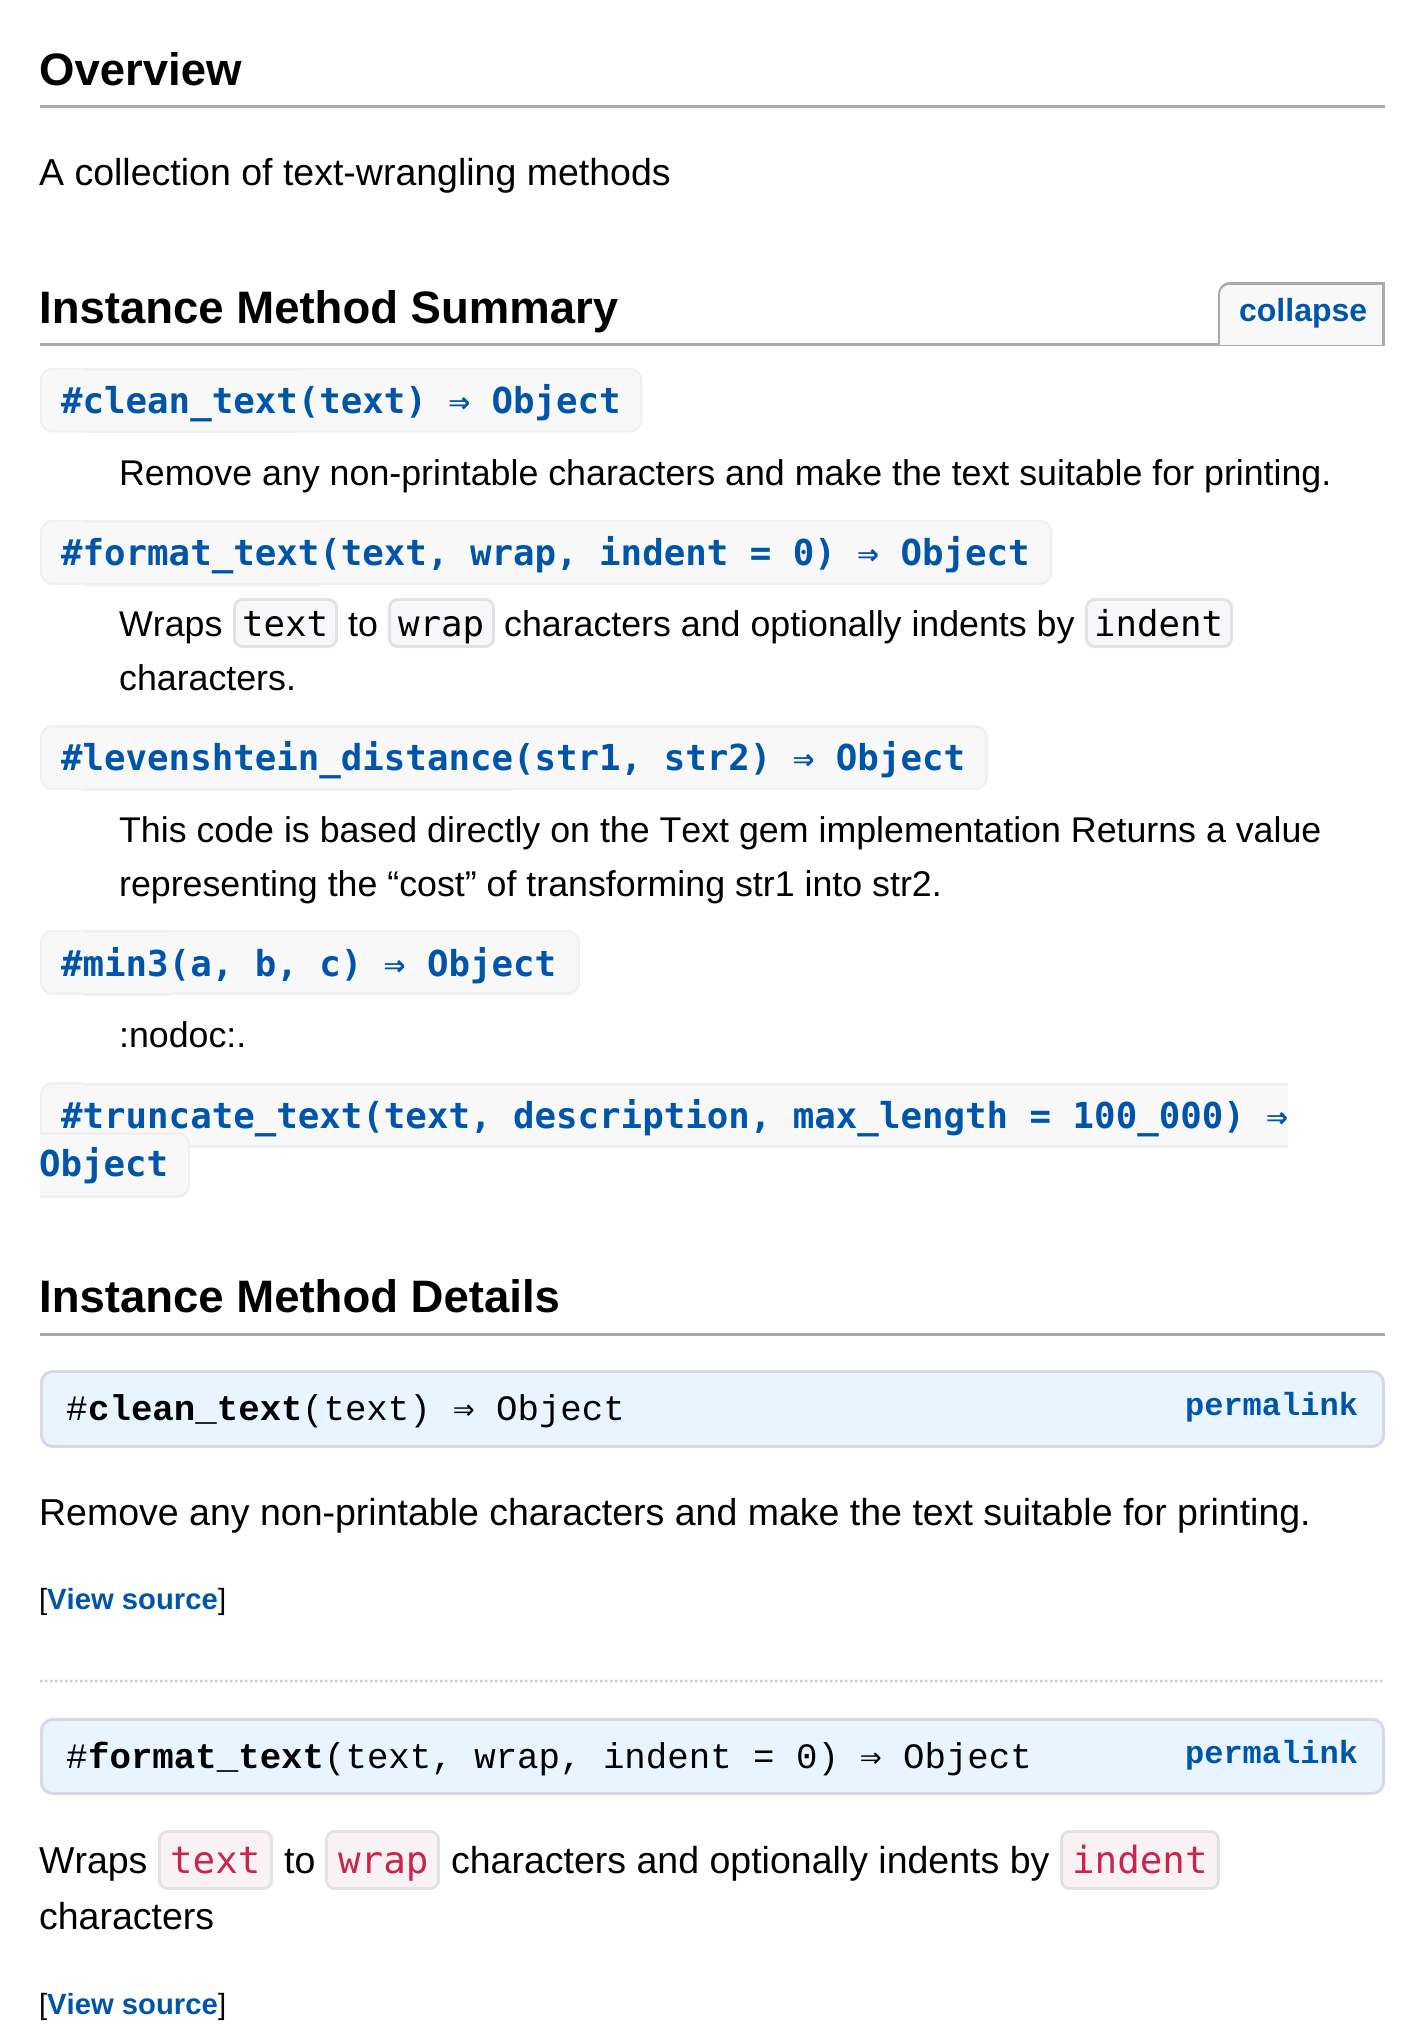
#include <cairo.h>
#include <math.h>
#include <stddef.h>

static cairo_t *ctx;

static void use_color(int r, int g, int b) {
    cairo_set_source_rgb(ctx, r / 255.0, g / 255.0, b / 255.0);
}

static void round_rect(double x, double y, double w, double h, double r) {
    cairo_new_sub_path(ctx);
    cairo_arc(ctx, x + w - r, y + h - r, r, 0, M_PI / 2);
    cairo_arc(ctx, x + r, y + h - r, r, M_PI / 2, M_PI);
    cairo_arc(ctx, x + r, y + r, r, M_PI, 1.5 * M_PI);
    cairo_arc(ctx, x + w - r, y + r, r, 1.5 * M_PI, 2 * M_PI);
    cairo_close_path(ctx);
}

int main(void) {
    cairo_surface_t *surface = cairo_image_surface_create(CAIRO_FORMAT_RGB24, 1424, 2024);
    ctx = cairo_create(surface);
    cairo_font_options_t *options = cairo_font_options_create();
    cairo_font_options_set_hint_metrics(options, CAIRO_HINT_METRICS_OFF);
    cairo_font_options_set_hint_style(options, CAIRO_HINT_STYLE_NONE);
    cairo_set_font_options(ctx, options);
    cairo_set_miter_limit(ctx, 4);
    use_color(255, 255, 255);
    cairo_paint(ctx);
    use_color(170, 170, 170);
    cairo_rectangle(ctx, 40, 105, 1345, 3);
    cairo_fill(ctx);
    cairo_select_font_face(ctx, "Liberation Sans", CAIRO_FONT_SLANT_NORMAL, CAIRO_FONT_WEIGHT_BOLD);
    cairo_set_font_size(ctx, 45.5);
    use_color(0, 0, 0);
    cairo_move_to(ctx, 39, 85);
    cairo_show_text(ctx, "Overview");
    cairo_select_font_face(ctx, "Liberation Sans", CAIRO_FONT_SLANT_NORMAL, CAIRO_FONT_WEIGHT_NORMAL);
    cairo_set_font_size(ctx, 37.5);
    cairo_move_to(ctx, 39, 185);
    cairo_show_text(ctx, "A collection of text-wrangling methods");
    use_color(170, 170, 170);
    cairo_rectangle(ctx, 40, 343, 1345, 3);
    cairo_fill(ctx);
    cairo_select_font_face(ctx, "Liberation Sans", CAIRO_FONT_SLANT_NORMAL, CAIRO_FONT_WEIGHT_BOLD);
    cairo_set_font_size(ctx, 45.5);
    use_color(0, 0, 0);
    cairo_move_to(ctx, 39, 323);
    cairo_show_text(ctx, "Instance Method Summary");
    use_color(248, 248, 248);
    cairo_new_path(ctx);
    cairo_move_to(ctx, 1231, 283);
    cairo_line_to(ctx, 1385, 283);
    cairo_line_to(ctx, 1385, 345);
    cairo_line_to(ctx, 1218, 345);
    cairo_line_to(ctx, 1218, 296);
    cairo_curve_to(ctx, 1218, 289, 1224, 283, 1231, 283);
    cairo_close_path(ctx);
    cairo_fill(ctx);
    use_color(170, 170, 170);
    cairo_set_fill_rule(ctx, CAIRO_FILL_RULE_EVEN_ODD);
    cairo_new_path(ctx);
    cairo_move_to(ctx, 1230, 282);
    cairo_line_to(ctx, 1385, 282);
    cairo_line_to(ctx, 1385, 345);
    cairo_line_to(ctx, 1218, 345);
    cairo_line_to(ctx, 1218, 295);
    cairo_curve_to(ctx, 1218, 288, 1223, 282, 1230, 282);
    cairo_close_path(ctx);
    cairo_move_to(ctx, 1230, 285);
    cairo_line_to(ctx, 1382, 285);
    cairo_line_to(ctx, 1382, 345);
    cairo_line_to(ctx, 1220, 345);
    cairo_line_to(ctx, 1220, 295);
    cairo_curve_to(ctx, 1220, 289, 1224, 285, 1230, 285);
    cairo_close_path(ctx);
    cairo_fill(ctx);
    cairo_set_font_size(ctx, 32);
    use_color(0, 85, 170);
    cairo_move_to(ctx, 1239, 321);
    cairo_show_text(ctx, "collapse");
    use_color(248, 248, 248);
    cairo_new_path(ctx);
    cairo_move_to(ctx, 53, 368);
    cairo_line_to(ctx, 83, 368);
    cairo_line_to(ctx, 83, 433);
    cairo_line_to(ctx, 53, 433);
    cairo_curve_to(ctx, 46, 433, 40, 427, 40, 420);
    cairo_line_to(ctx, 40, 381);
    cairo_curve_to(ctx, 40, 374, 46, 368, 53, 368);
    cairo_close_path(ctx);
    cairo_fill(ctx);
    use_color(240, 240, 240);
    cairo_new_path(ctx);
    cairo_move_to(ctx, 52, 368);
    cairo_line_to(ctx, 82, 368);
    cairo_line_to(ctx, 82, 432);
    cairo_line_to(ctx, 52, 432);
    cairo_curve_to(ctx, 46, 432, 40, 427, 40, 420);
    cairo_line_to(ctx, 40, 380);
    cairo_curve_to(ctx, 40, 373, 46, 368, 52, 368);
    cairo_close_path(ctx);
    cairo_move_to(ctx, 52, 370);
    cairo_line_to(ctx, 82, 370);
    cairo_line_to(ctx, 82, 430);
    cairo_line_to(ctx, 52, 430);
    cairo_curve_to(ctx, 47, 430, 42, 426, 42, 420);
    cairo_line_to(ctx, 42, 380);
    cairo_curve_to(ctx, 42, 374, 47, 370, 52, 370);
    cairo_close_path(ctx);
    cairo_fill(ctx);
    use_color(248, 248, 248);
    cairo_rectangle(ctx, 83, 371, 215, 59);
    cairo_fill(ctx);
    cairo_new_path(ctx);
    cairo_move_to(ctx, 298, 368);
    cairo_line_to(ctx, 630, 368);
    cairo_curve_to(ctx, 637, 368, 643, 374, 643, 381);
    cairo_line_to(ctx, 643, 420);
    cairo_curve_to(ctx, 643, 427, 637, 433, 630, 433);
    cairo_line_to(ctx, 298, 433);
    cairo_close_path(ctx);
    cairo_fill(ctx);
    use_color(240, 240, 240);
    cairo_new_path(ctx);
    cairo_move_to(ctx, 298, 368);
    cairo_line_to(ctx, 630, 368);
    cairo_curve_to(ctx, 637, 368, 642, 373, 642, 380);
    cairo_line_to(ctx, 642, 420);
    cairo_curve_to(ctx, 642, 427, 637, 432, 630, 432);
    cairo_line_to(ctx, 298, 432);
    cairo_close_path(ctx);
    cairo_move_to(ctx, 298, 370);
    cairo_line_to(ctx, 630, 370);
    cairo_curve_to(ctx, 636, 370, 640, 374, 640, 380);
    cairo_line_to(ctx, 640, 420);
    cairo_curve_to(ctx, 640, 426, 636, 430, 630, 430);
    cairo_line_to(ctx, 298, 430);
    cairo_close_path(ctx);
    cairo_fill(ctx);
    cairo_select_font_face(ctx, "DejaVu Sans Mono", CAIRO_FONT_SLANT_NORMAL, CAIRO_FONT_WEIGHT_BOLD);
    cairo_set_font_size(ctx, 35.75);
    use_color(0, 85, 170);
    cairo_move_to(ctx, 61, 413);
    cairo_show_text(ctx, "#clean_text(text) ⇒ Object");
    use_color(240, 240, 240);
    cairo_rectangle(ctx, 83, 368, 215, 3);
    cairo_fill(ctx);
    cairo_rectangle(ctx, 83, 430, 215, 3);
    cairo_fill(ctx);
    cairo_select_font_face(ctx, "Liberation Sans", CAIRO_FONT_SLANT_NORMAL, CAIRO_FONT_WEIGHT_NORMAL);
    use_color(0, 0, 0);
    cairo_move_to(ctx, 119, 485);
    cairo_show_text(ctx, "Remove any non-printable characters and make the text suitable for printing.");
    use_color(248, 248, 248);
    cairo_new_path(ctx);
    cairo_move_to(ctx, 53, 520);
    cairo_line_to(ctx, 83, 520);
    cairo_line_to(ctx, 83, 585);
    cairo_line_to(ctx, 53, 585);
    cairo_curve_to(ctx, 46, 585, 40, 579, 40, 572);
    cairo_line_to(ctx, 40, 533);
    cairo_curve_to(ctx, 40, 526, 46, 520, 53, 520);
    cairo_close_path(ctx);
    cairo_fill(ctx);
    use_color(240, 240, 240);
    cairo_new_path(ctx);
    cairo_move_to(ctx, 52, 520);
    cairo_line_to(ctx, 82, 520);
    cairo_line_to(ctx, 82, 585);
    cairo_line_to(ctx, 52, 585);
    cairo_curve_to(ctx, 46, 585, 40, 579, 40, 572);
    cairo_line_to(ctx, 40, 532);
    cairo_curve_to(ctx, 40, 526, 46, 520, 52, 520);
    cairo_close_path(ctx);
    cairo_move_to(ctx, 52, 522);
    cairo_line_to(ctx, 82, 522);
    cairo_line_to(ctx, 82, 582);
    cairo_line_to(ctx, 52, 582);
    cairo_curve_to(ctx, 47, 582, 42, 578, 42, 572);
    cairo_line_to(ctx, 42, 532);
    cairo_curve_to(ctx, 42, 527, 47, 522, 52, 522);
    cairo_close_path(ctx);
    cairo_fill(ctx);
    use_color(248, 248, 248);
    cairo_rectangle(ctx, 83, 523, 237, 60);
    cairo_fill(ctx);
    cairo_new_path(ctx);
    cairo_move_to(ctx, 320, 520);
    cairo_line_to(ctx, 1040, 520);
    cairo_curve_to(ctx, 1047, 520, 1053, 526, 1053, 533);
    cairo_line_to(ctx, 1053, 572);
    cairo_curve_to(ctx, 1053, 579, 1047, 585, 1040, 585);
    cairo_line_to(ctx, 320, 585);
    cairo_close_path(ctx);
    cairo_fill(ctx);
    use_color(240, 240, 240);
    cairo_new_path(ctx);
    cairo_move_to(ctx, 320, 520);
    cairo_line_to(ctx, 1040, 520);
    cairo_curve_to(ctx, 1047, 520, 1052, 526, 1052, 532);
    cairo_line_to(ctx, 1052, 572);
    cairo_curve_to(ctx, 1052, 579, 1047, 585, 1040, 585);
    cairo_line_to(ctx, 320, 585);
    cairo_close_path(ctx);
    cairo_move_to(ctx, 320, 522);
    cairo_line_to(ctx, 1040, 522);
    cairo_curve_to(ctx, 1046, 522, 1050, 527, 1050, 532);
    cairo_line_to(ctx, 1050, 572);
    cairo_curve_to(ctx, 1050, 578, 1046, 582, 1040, 582);
    cairo_line_to(ctx, 320, 582);
    cairo_close_path(ctx);
    cairo_fill(ctx);
    cairo_select_font_face(ctx, "DejaVu Sans Mono", CAIRO_FONT_SLANT_NORMAL, CAIRO_FONT_WEIGHT_BOLD);
    use_color(0, 85, 170);
    cairo_move_to(ctx, 61, 565);
    cairo_show_text(ctx, "#format_text(text, wrap, indent = 0) ⇒ Object");
    use_color(240, 240, 240);
    cairo_rectangle(ctx, 83, 520, 237, 3);
    cairo_fill(ctx);
    cairo_rectangle(ctx, 83, 583, 237, 3);
    cairo_fill(ctx);
    cairo_select_font_face(ctx, "Liberation Sans", CAIRO_FONT_SLANT_NORMAL, CAIRO_FONT_WEIGHT_NORMAL);
    use_color(0, 0, 0);
    cairo_move_to(ctx, 119, 636);
    cairo_show_text(ctx, "Wraps");
    use_color(247, 247, 249);
    round_rect(234.5, 599.5, 102, 47, 8.5);
    cairo_fill_preserve(ctx);
    use_color(225, 225, 232);
    cairo_set_line_width(ctx, 3);
    cairo_stroke(ctx);
    cairo_select_font_face(ctx, "DejaVu Sans Mono", CAIRO_FONT_SLANT_NORMAL, CAIRO_FONT_WEIGHT_NORMAL);
    use_color(0, 0, 0);
    cairo_move_to(ctx, 242, 636);
    cairo_show_text(ctx, "text");
    cairo_select_font_face(ctx, "Liberation Sans", CAIRO_FONT_SLANT_NORMAL, CAIRO_FONT_WEIGHT_NORMAL);
    cairo_move_to(ctx, 348, 636);
    cairo_show_text(ctx, "to");
    use_color(247, 247, 249);
    round_rect(389.5, 599.5, 104, 47, 8.5);
    cairo_fill_preserve(ctx);
    use_color(225, 225, 232);
    cairo_stroke(ctx);
    cairo_select_font_face(ctx, "DejaVu Sans Mono", CAIRO_FONT_SLANT_NORMAL, CAIRO_FONT_WEIGHT_NORMAL);
    use_color(0, 0, 0);
    cairo_move_to(ctx, 398, 636);
    cairo_show_text(ctx, "wrap");
    cairo_select_font_face(ctx, "Liberation Sans", CAIRO_FONT_SLANT_NORMAL, CAIRO_FONT_WEIGHT_NORMAL);
    cairo_move_to(ctx, 504, 636);
    cairo_show_text(ctx, "characters and optionally indents by");
    use_color(247, 247, 249);
    round_rect(1086.5, 599.5, 145, 47, 8.5);
    cairo_fill_preserve(ctx);
    use_color(225, 225, 232);
    cairo_stroke(ctx);
    cairo_select_font_face(ctx, "DejaVu Sans Mono", CAIRO_FONT_SLANT_NORMAL, CAIRO_FONT_WEIGHT_NORMAL);
    use_color(0, 0, 0);
    cairo_move_to(ctx, 1094, 636);
    cairo_show_text(ctx, "indent");
    cairo_select_font_face(ctx, "Liberation Sans", CAIRO_FONT_SLANT_NORMAL, CAIRO_FONT_WEIGHT_NORMAL);
    cairo_move_to(ctx, 119, 690);
    cairo_show_text(ctx, "characters.");
    use_color(248, 248, 248);
    cairo_new_path(ctx);
    cairo_move_to(ctx, 53, 725);
    cairo_line_to(ctx, 83, 725);
    cairo_line_to(ctx, 83, 790);
    cairo_line_to(ctx, 53, 790);
    cairo_curve_to(ctx, 46, 790, 40, 784, 40, 777);
    cairo_line_to(ctx, 40, 738);
    cairo_curve_to(ctx, 40, 731, 46, 725, 53, 725);
    cairo_close_path(ctx);
    cairo_fill(ctx);
    use_color(240, 240, 240);
    cairo_new_path(ctx);
    cairo_move_to(ctx, 52, 725);
    cairo_line_to(ctx, 82, 725);
    cairo_line_to(ctx, 82, 790);
    cairo_line_to(ctx, 52, 790);
    cairo_curve_to(ctx, 46, 790, 40, 784, 40, 778);
    cairo_line_to(ctx, 40, 738);
    cairo_curve_to(ctx, 40, 731, 46, 725, 52, 725);
    cairo_close_path(ctx);
    cairo_move_to(ctx, 52, 728);
    cairo_line_to(ctx, 82, 728);
    cairo_line_to(ctx, 82, 788);
    cairo_line_to(ctx, 52, 788);
    cairo_curve_to(ctx, 47, 788, 42, 783, 42, 778);
    cairo_line_to(ctx, 42, 738);
    cairo_curve_to(ctx, 42, 732, 47, 728, 52, 728);
    cairo_close_path(ctx);
    cairo_fill(ctx);
    use_color(248, 248, 248);
    cairo_rectangle(ctx, 83, 728, 430, 60);
    cairo_fill(ctx);
    cairo_new_path(ctx);
    cairo_move_to(ctx, 513, 725);
    cairo_line_to(ctx, 975, 725);
    cairo_curve_to(ctx, 982, 725, 988, 731, 988, 738);
    cairo_line_to(ctx, 988, 777);
    cairo_curve_to(ctx, 988, 784, 982, 790, 975, 790);
    cairo_line_to(ctx, 513, 790);
    cairo_close_path(ctx);
    cairo_fill(ctx);
    use_color(240, 240, 240);
    cairo_rectangle(ctx, 83, 725, 430, 3);
    cairo_fill(ctx);
    cairo_rectangle(ctx, 83, 788, 430, 3);
    cairo_fill(ctx);
    cairo_new_path(ctx);
    cairo_move_to(ctx, 512, 725);
    cairo_line_to(ctx, 975, 725);
    cairo_curve_to(ctx, 982, 725, 988, 731, 988, 738);
    cairo_line_to(ctx, 988, 778);
    cairo_curve_to(ctx, 988, 784, 982, 790, 975, 790);
    cairo_line_to(ctx, 512, 790);
    cairo_close_path(ctx);
    cairo_move_to(ctx, 512, 728);
    cairo_line_to(ctx, 975, 728);
    cairo_curve_to(ctx, 981, 728, 985, 732, 985, 738);
    cairo_line_to(ctx, 985, 778);
    cairo_curve_to(ctx, 985, 783, 981, 788, 975, 788);
    cairo_line_to(ctx, 512, 788);
    cairo_close_path(ctx);
    cairo_fill(ctx);
    cairo_select_font_face(ctx, "DejaVu Sans Mono", CAIRO_FONT_SLANT_NORMAL, CAIRO_FONT_WEIGHT_BOLD);
    use_color(0, 85, 170);
    cairo_move_to(ctx, 61, 770);
    cairo_show_text(ctx, "#levenshtein_distance(str1, str2) ⇒ Object");
    cairo_select_font_face(ctx, "Liberation Sans", CAIRO_FONT_SLANT_NORMAL, CAIRO_FONT_WEIGHT_NORMAL);
    use_color(0, 0, 0);
    cairo_move_to(ctx, 119, 842);
    cairo_show_text(ctx, "This code is based directly on the Text gem implementation Returns a value");
    cairo_move_to(ctx, 119, 896);
    cairo_show_text(ctx, "representing the “cost” of transforming str1 into str2.");
    use_color(248, 248, 248);
    cairo_new_path(ctx);
    cairo_move_to(ctx, 53, 930);
    cairo_line_to(ctx, 83, 930);
    cairo_line_to(ctx, 83, 995);
    cairo_line_to(ctx, 53, 995);
    cairo_curve_to(ctx, 46, 995, 40, 989, 40, 982);
    cairo_line_to(ctx, 40, 943);
    cairo_curve_to(ctx, 40, 936, 46, 930, 53, 930);
    cairo_close_path(ctx);
    cairo_fill(ctx);
    use_color(240, 240, 240);
    cairo_new_path(ctx);
    cairo_move_to(ctx, 52, 930);
    cairo_line_to(ctx, 82, 930);
    cairo_line_to(ctx, 82, 995);
    cairo_line_to(ctx, 52, 995);
    cairo_curve_to(ctx, 46, 995, 40, 989, 40, 982);
    cairo_line_to(ctx, 40, 942);
    cairo_curve_to(ctx, 40, 936, 46, 930, 52, 930);
    cairo_close_path(ctx);
    cairo_move_to(ctx, 52, 932);
    cairo_line_to(ctx, 82, 932);
    cairo_line_to(ctx, 82, 992);
    cairo_line_to(ctx, 52, 992);
    cairo_curve_to(ctx, 47, 992, 42, 988, 42, 982);
    cairo_line_to(ctx, 42, 942);
    cairo_curve_to(ctx, 42, 937, 47, 932, 52, 932);
    cairo_close_path(ctx);
    cairo_fill(ctx);
    use_color(248, 248, 248);
    cairo_rectangle(ctx, 83, 933, 87, 60);
    cairo_fill(ctx);
    cairo_new_path(ctx);
    cairo_move_to(ctx, 170, 930);
    cairo_line_to(ctx, 567, 930);
    cairo_curve_to(ctx, 574, 930, 580, 936, 580, 943);
    cairo_line_to(ctx, 580, 982);
    cairo_curve_to(ctx, 580, 989, 574, 995, 567, 995);
    cairo_line_to(ctx, 170, 995);
    cairo_close_path(ctx);
    cairo_fill(ctx);
    use_color(240, 240, 240);
    cairo_new_path(ctx);
    cairo_move_to(ctx, 170, 930);
    cairo_line_to(ctx, 568, 930);
    cairo_curve_to(ctx, 574, 930, 580, 936, 580, 942);
    cairo_line_to(ctx, 580, 982);
    cairo_curve_to(ctx, 580, 989, 574, 995, 568, 995);
    cairo_line_to(ctx, 170, 995);
    cairo_close_path(ctx);
    cairo_move_to(ctx, 170, 932);
    cairo_line_to(ctx, 568, 932);
    cairo_curve_to(ctx, 573, 932, 578, 937, 578, 942);
    cairo_line_to(ctx, 578, 982);
    cairo_curve_to(ctx, 578, 988, 573, 992, 568, 992);
    cairo_line_to(ctx, 170, 992);
    cairo_close_path(ctx);
    cairo_fill(ctx);
    cairo_select_font_face(ctx, "DejaVu Sans Mono", CAIRO_FONT_SLANT_NORMAL, CAIRO_FONT_WEIGHT_BOLD);
    use_color(0, 85, 170);
    cairo_move_to(ctx, 61, 976);
    cairo_show_text(ctx, "#min3(a, b, c) ⇒ Object");
    use_color(240, 240, 240);
    cairo_rectangle(ctx, 83, 930, 87, 3);
    cairo_fill(ctx);
    cairo_rectangle(ctx, 83, 993, 87, 3);
    cairo_fill(ctx);
    cairo_select_font_face(ctx, "Liberation Sans", CAIRO_FONT_SLANT_NORMAL, CAIRO_FONT_WEIGHT_NORMAL);
    use_color(0, 0, 0);
    cairo_move_to(ctx, 119, 1047);
    cairo_show_text(ctx, ":nodoc:.");
    use_color(248, 248, 248);
    cairo_new_path(ctx);
    cairo_move_to(ctx, 53, 1083);
    cairo_line_to(ctx, 83, 1083);
    cairo_line_to(ctx, 83, 1148);
    cairo_line_to(ctx, 53, 1148);
    cairo_curve_to(ctx, 46, 1148, 40, 1142, 40, 1135);
    cairo_line_to(ctx, 40, 1096);
    cairo_curve_to(ctx, 40, 1089, 46, 1083, 53, 1083);
    cairo_close_path(ctx);
    cairo_fill(ctx);
    use_color(240, 240, 240);
    cairo_new_path(ctx);
    cairo_move_to(ctx, 52, 1082);
    cairo_line_to(ctx, 82, 1082);
    cairo_line_to(ctx, 82, 1148);
    cairo_line_to(ctx, 52, 1148);
    cairo_curve_to(ctx, 46, 1148, 40, 1142, 40, 1135);
    cairo_line_to(ctx, 40, 1095);
    cairo_curve_to(ctx, 40, 1088, 46, 1082, 52, 1082);
    cairo_close_path(ctx);
    cairo_move_to(ctx, 52, 1085);
    cairo_line_to(ctx, 82, 1085);
    cairo_line_to(ctx, 82, 1145);
    cairo_line_to(ctx, 52, 1145);
    cairo_curve_to(ctx, 47, 1145, 42, 1141, 42, 1135);
    cairo_line_to(ctx, 42, 1095);
    cairo_curve_to(ctx, 42, 1089, 47, 1085, 52, 1085);
    cairo_close_path(ctx);
    cairo_fill(ctx);
    use_color(248, 248, 248);
    cairo_rectangle(ctx, 83, 1086, 1205, 59);
    cairo_fill(ctx);
    cairo_new_path(ctx);
    cairo_move_to(ctx, 40, 1133);
    cairo_line_to(ctx, 177, 1133);
    cairo_curve_to(ctx, 184, 1133, 190, 1139, 190, 1146);
    cairo_line_to(ctx, 190, 1185);
    cairo_curve_to(ctx, 190, 1192, 184, 1198, 177, 1198);
    cairo_line_to(ctx, 40, 1198);
    cairo_close_path(ctx);
    cairo_fill(ctx);
    use_color(240, 240, 240);
    cairo_new_path(ctx);
    cairo_move_to(ctx, 40, 1132);
    cairo_line_to(ctx, 178, 1132);
    cairo_curve_to(ctx, 184, 1132, 190, 1138, 190, 1145);
    cairo_line_to(ctx, 190, 1185);
    cairo_curve_to(ctx, 190, 1192, 184, 1198, 178, 1198);
    cairo_line_to(ctx, 40, 1198);
    cairo_close_path(ctx);
    cairo_move_to(ctx, 40, 1135);
    cairo_line_to(ctx, 178, 1135);
    cairo_curve_to(ctx, 183, 1135, 188, 1139, 188, 1145);
    cairo_line_to(ctx, 188, 1185);
    cairo_curve_to(ctx, 188, 1191, 183, 1195, 178, 1195);
    cairo_line_to(ctx, 40, 1195);
    cairo_close_path(ctx);
    cairo_fill(ctx);
    cairo_select_font_face(ctx, "DejaVu Sans Mono", CAIRO_FONT_SLANT_NORMAL, CAIRO_FONT_WEIGHT_BOLD);
    use_color(0, 85, 170);
    cairo_move_to(ctx, 61, 1128);
    cairo_show_text(ctx, "#truncate_text(text, description, max_length = 100_000) ⇒");
    use_color(240, 240, 240);
    cairo_rectangle(ctx, 83, 1083, 1205, 3);
    cairo_fill(ctx);
    cairo_rectangle(ctx, 190, 1145, 1098, 3);
    cairo_fill(ctx);
    use_color(0, 85, 170);
    cairo_move_to(ctx, 39, 1176);
    cairo_show_text(ctx, "Object");
    use_color(170, 170, 170);
    cairo_rectangle(ctx, 40, 1333, 1345, 3);
    cairo_fill(ctx);
    cairo_select_font_face(ctx, "Liberation Sans", CAIRO_FONT_SLANT_NORMAL, CAIRO_FONT_WEIGHT_BOLD);
    cairo_set_font_size(ctx, 45.5);
    use_color(0, 0, 0);
    cairo_move_to(ctx, 39, 1312);
    cairo_show_text(ctx, "Instance Method Details");
    use_color(232, 244, 255);
    round_rect(41.5, 1371.5, 1342, 75, 11.5);
    cairo_fill_preserve(ctx);
    use_color(216, 216, 229);
    cairo_stroke(ctx);
    cairo_select_font_face(ctx, "Liberation Mono", CAIRO_FONT_SLANT_NORMAL, CAIRO_FONT_WEIGHT_NORMAL);
    cairo_set_font_size(ctx, 35.75);
    use_color(0, 0, 0);
    cairo_move_to(ctx, 66, 1420);
    cairo_show_text(ctx, "#");
    cairo_select_font_face(ctx, "Liberation Mono", CAIRO_FONT_SLANT_NORMAL, CAIRO_FONT_WEIGHT_BOLD);
    cairo_move_to(ctx, 88, 1420);
    cairo_show_text(ctx, "clean_text");
    cairo_select_font_face(ctx, "Liberation Mono", CAIRO_FONT_SLANT_NORMAL, CAIRO_FONT_WEIGHT_NORMAL);
    cairo_move_to(ctx, 302, 1420);
    cairo_show_text(ctx, "(text)");
    cairo_select_font_face(ctx, "DejaVu Sans Mono", CAIRO_FONT_SLANT_NORMAL, CAIRO_FONT_WEIGHT_NORMAL);
    cairo_move_to(ctx, 453, 1420);
    cairo_show_text(ctx, "⇒");
    cairo_select_font_face(ctx, "Liberation Mono", CAIRO_FONT_SLANT_NORMAL, CAIRO_FONT_WEIGHT_NORMAL);
    cairo_move_to(ctx, 496, 1420);
    cairo_show_text(ctx, "Object");
    cairo_select_font_face(ctx, "Liberation Mono", CAIRO_FONT_SLANT_NORMAL, CAIRO_FONT_WEIGHT_BOLD);
    cairo_set_font_size(ctx, 32);
    use_color(0, 85, 170);
    cairo_move_to(ctx, 1185, 1415);
    cairo_show_text(ctx, "permalink");
    cairo_select_font_face(ctx, "Liberation Sans", CAIRO_FONT_SLANT_NORMAL, CAIRO_FONT_WEIGHT_NORMAL);
    cairo_set_font_size(ctx, 37.5);
    use_color(0, 0, 0);
    cairo_move_to(ctx, 39, 1525);
    cairo_show_text(ctx, "Remove any non-printable characters and make the text suitable for printing.");
    cairo_set_font_size(ctx, 29.25);
    cairo_move_to(ctx, 39, 1609);
    cairo_show_text(ctx, "[");
    cairo_select_font_face(ctx, "Liberation Sans", CAIRO_FONT_SLANT_NORMAL, CAIRO_FONT_WEIGHT_BOLD);
    use_color(0, 85, 170);
    cairo_move_to(ctx, 47, 1609);
    cairo_show_text(ctx, "View source");
    cairo_select_font_face(ctx, "Liberation Sans", CAIRO_FONT_SLANT_NORMAL, CAIRO_FONT_WEIGHT_NORMAL);
    use_color(0, 0, 0);
    cairo_move_to(ctx, 218, 1609);
    cairo_show_text(ctx, "]");
    cairo_new_path(ctx);
    cairo_move_to(ctx, 40, 1681);
    cairo_line_to(ctx, 1385, 1681);
    use_color(204, 204, 204);
    cairo_set_line_width(ctx, 2.5);
    cairo_set_dash(ctx, (double[]){2.5, 2.5}, 2, 0);
    cairo_stroke(ctx);
    use_color(232, 244, 255);
    round_rect(41.5, 1719.5, 1342, 74, 11.5);
    cairo_fill_preserve(ctx);
    use_color(216, 216, 229);
    cairo_set_line_width(ctx, 3);
    cairo_set_dash(ctx, NULL, 0, 0);
    cairo_stroke(ctx);
    cairo_select_font_face(ctx, "Liberation Mono", CAIRO_FONT_SLANT_NORMAL, CAIRO_FONT_WEIGHT_NORMAL);
    cairo_set_font_size(ctx, 35.75);
    use_color(0, 0, 0);
    cairo_move_to(ctx, 66, 1768);
    cairo_show_text(ctx, "#");
    cairo_select_font_face(ctx, "Liberation Mono", CAIRO_FONT_SLANT_NORMAL, CAIRO_FONT_WEIGHT_BOLD);
    cairo_move_to(ctx, 88, 1768);
    cairo_show_text(ctx, "format_text");
    cairo_select_font_face(ctx, "Liberation Mono", CAIRO_FONT_SLANT_NORMAL, CAIRO_FONT_WEIGHT_NORMAL);
    cairo_move_to(ctx, 324, 1768);
    cairo_show_text(ctx, "(text, wrap, indent = 0)");
    cairo_select_font_face(ctx, "DejaVu Sans Mono", CAIRO_FONT_SLANT_NORMAL, CAIRO_FONT_WEIGHT_NORMAL);
    cairo_move_to(ctx, 860, 1768);
    cairo_show_text(ctx, "⇒");
    cairo_select_font_face(ctx, "Liberation Mono", CAIRO_FONT_SLANT_NORMAL, CAIRO_FONT_WEIGHT_NORMAL);
    cairo_move_to(ctx, 903, 1768);
    cairo_show_text(ctx, "Object");
    cairo_select_font_face(ctx, "Liberation Mono", CAIRO_FONT_SLANT_NORMAL, CAIRO_FONT_WEIGHT_BOLD);
    cairo_set_font_size(ctx, 32);
    use_color(0, 85, 170);
    cairo_move_to(ctx, 1185, 1763);
    cairo_show_text(ctx, "permalink");
    cairo_select_font_face(ctx, "Liberation Sans", CAIRO_FONT_SLANT_NORMAL, CAIRO_FONT_WEIGHT_NORMAL);
    cairo_set_font_size(ctx, 37.5);
    use_color(0, 0, 0);
    cairo_move_to(ctx, 39, 1873);
    cairo_show_text(ctx, "Wraps");
    use_color(249, 242, 244);
    round_rect(159.5, 1831.5, 112, 57, 8.5);
    cairo_fill_preserve(ctx);
    use_color(225, 225, 232);
    cairo_stroke(ctx);
    cairo_select_font_face(ctx, "DejaVu Sans Mono", CAIRO_FONT_SLANT_NORMAL, CAIRO_FONT_WEIGHT_NORMAL);
    use_color(199, 37, 78);
    cairo_move_to(ctx, 170, 1873);
    cairo_show_text(ctx, "text");
    cairo_select_font_face(ctx, "Liberation Sans", CAIRO_FONT_SLANT_NORMAL, CAIRO_FONT_WEIGHT_NORMAL);
    use_color(0, 0, 0);
    cairo_move_to(ctx, 284, 1873);
    cairo_show_text(ctx, "to");
    use_color(249, 242, 244);
    round_rect(326.5, 1831.5, 112, 57, 8.5);
    cairo_fill_preserve(ctx);
    use_color(225, 225, 232);
    cairo_stroke(ctx);
    cairo_select_font_face(ctx, "DejaVu Sans Mono", CAIRO_FONT_SLANT_NORMAL, CAIRO_FONT_WEIGHT_NORMAL);
    use_color(199, 37, 78);
    cairo_move_to(ctx, 338, 1873);
    cairo_show_text(ctx, "wrap");
    cairo_select_font_face(ctx, "Liberation Sans", CAIRO_FONT_SLANT_NORMAL, CAIRO_FONT_WEIGHT_NORMAL);
    use_color(0, 0, 0);
    cairo_move_to(ctx, 451, 1873);
    cairo_show_text(ctx, "characters and optionally indents by");
    use_color(249, 242, 244);
    round_rect(1061.5, 1831.5, 157, 57, 8.5);
    cairo_fill_preserve(ctx);
    use_color(225, 225, 232);
    cairo_stroke(ctx);
    cairo_select_font_face(ctx, "DejaVu Sans Mono", CAIRO_FONT_SLANT_NORMAL, CAIRO_FONT_WEIGHT_NORMAL);
    use_color(199, 37, 78);
    cairo_move_to(ctx, 1072, 1873);
    cairo_show_text(ctx, "indent");
    cairo_select_font_face(ctx, "Liberation Sans", CAIRO_FONT_SLANT_NORMAL, CAIRO_FONT_WEIGHT_NORMAL);
    use_color(0, 0, 0);
    cairo_move_to(ctx, 39, 1929);
    cairo_show_text(ctx, "characters");
    cairo_set_font_size(ctx, 29.25);
    cairo_move_to(ctx, 39, 2014);
    cairo_show_text(ctx, "[");
    cairo_select_font_face(ctx, "Liberation Sans", CAIRO_FONT_SLANT_NORMAL, CAIRO_FONT_WEIGHT_BOLD);
    use_color(0, 85, 170);
    cairo_move_to(ctx, 47, 2014);
    cairo_show_text(ctx, "View source");
    cairo_select_font_face(ctx, "Liberation Sans", CAIRO_FONT_SLANT_NORMAL, CAIRO_FONT_WEIGHT_NORMAL);
    use_color(0, 0, 0);
    cairo_move_to(ctx, 218, 2014);
    cairo_show_text(ctx, "]");
    cairo_surface_write_to_png(surface, "result.png");
    cairo_font_options_destroy(options);
    cairo_destroy(ctx);
    cairo_surface_destroy(surface);
    return 0;
}
